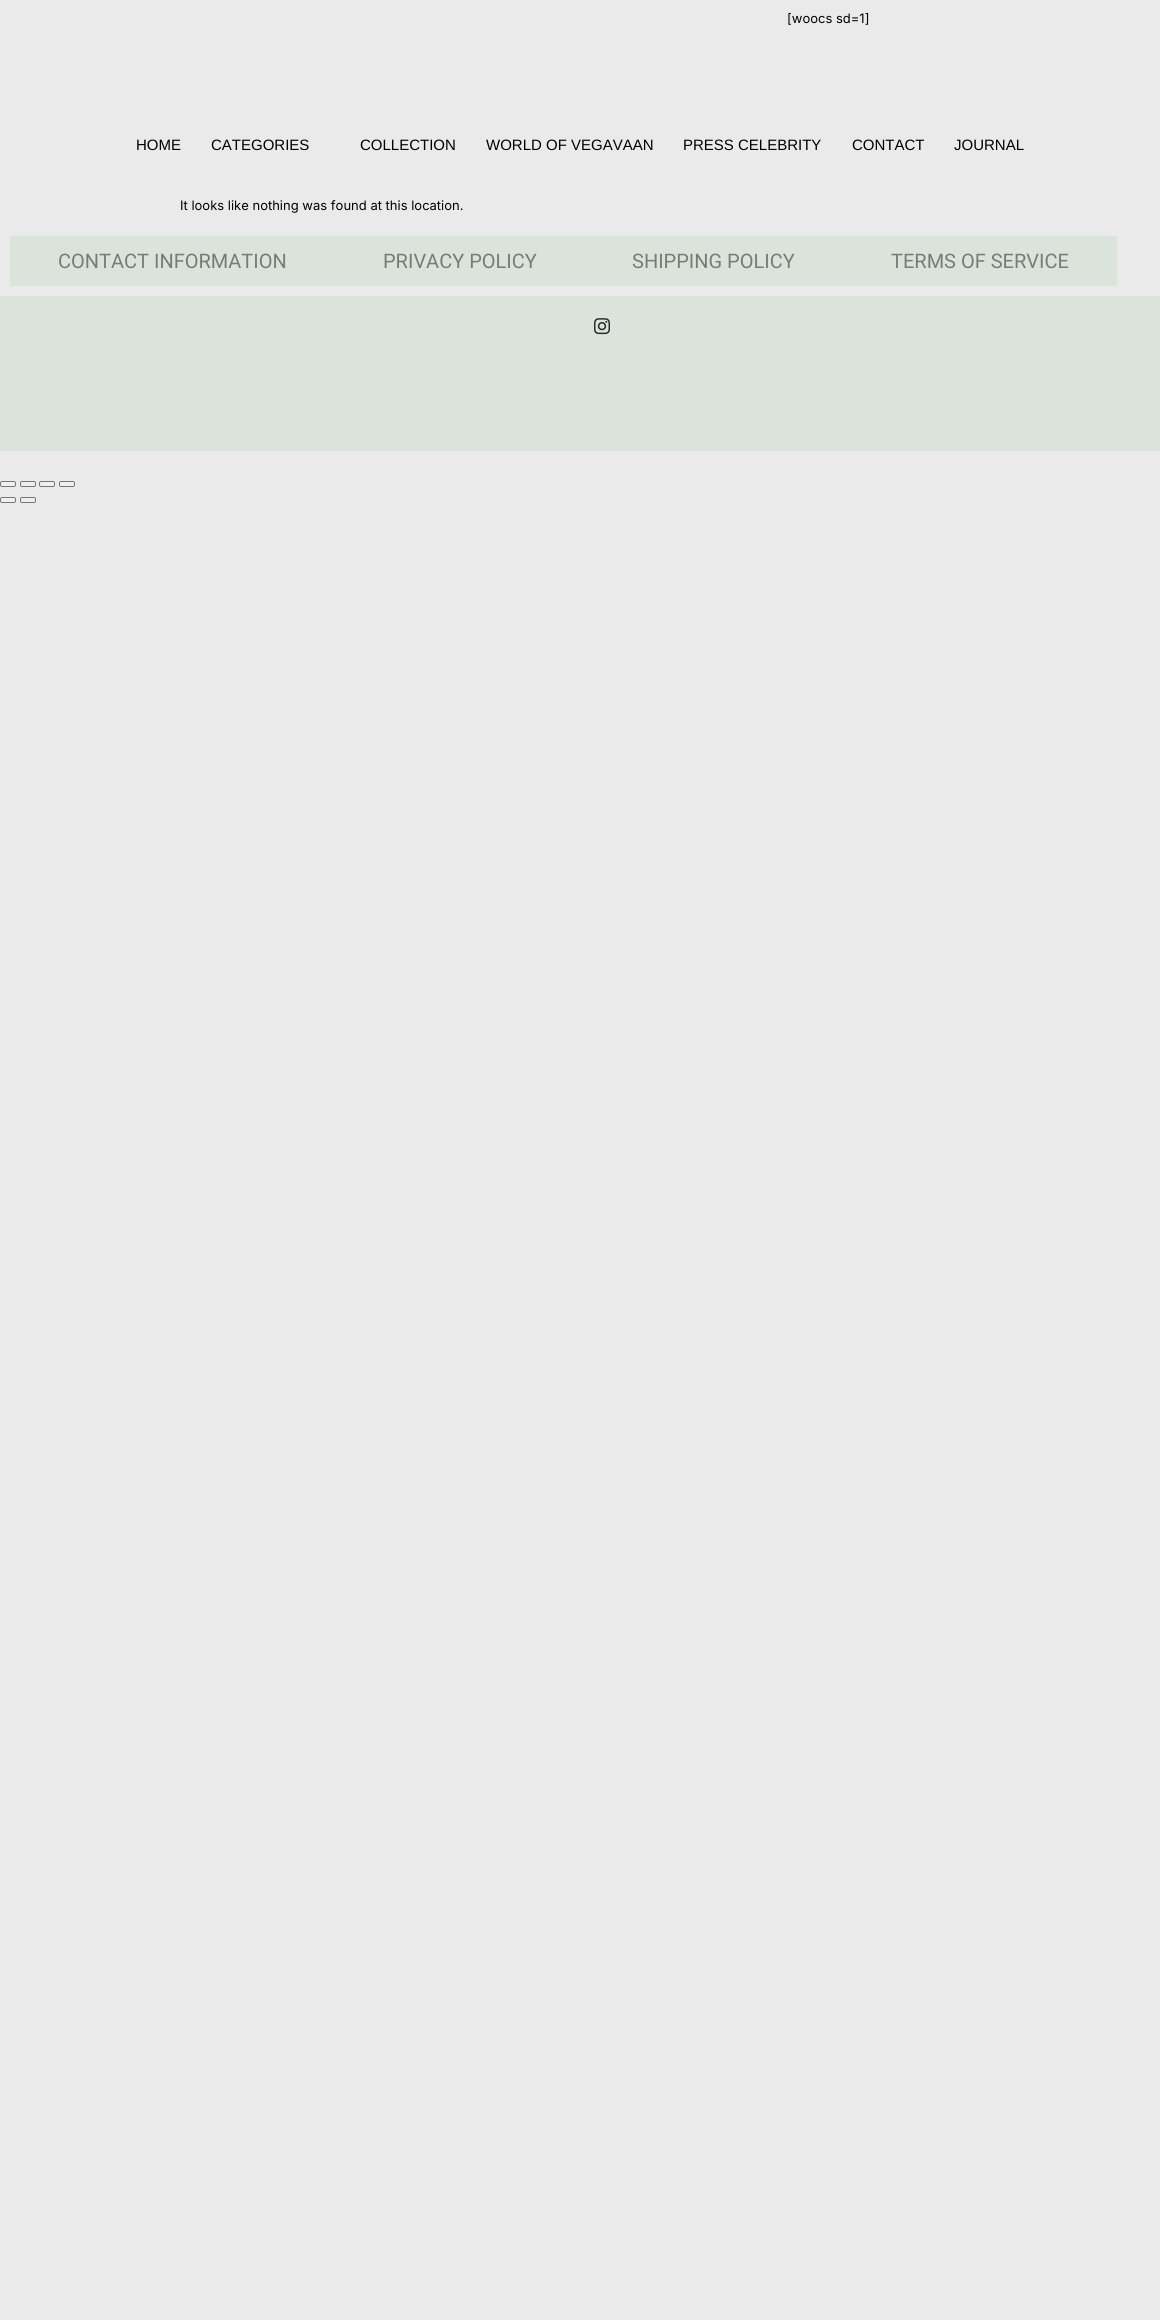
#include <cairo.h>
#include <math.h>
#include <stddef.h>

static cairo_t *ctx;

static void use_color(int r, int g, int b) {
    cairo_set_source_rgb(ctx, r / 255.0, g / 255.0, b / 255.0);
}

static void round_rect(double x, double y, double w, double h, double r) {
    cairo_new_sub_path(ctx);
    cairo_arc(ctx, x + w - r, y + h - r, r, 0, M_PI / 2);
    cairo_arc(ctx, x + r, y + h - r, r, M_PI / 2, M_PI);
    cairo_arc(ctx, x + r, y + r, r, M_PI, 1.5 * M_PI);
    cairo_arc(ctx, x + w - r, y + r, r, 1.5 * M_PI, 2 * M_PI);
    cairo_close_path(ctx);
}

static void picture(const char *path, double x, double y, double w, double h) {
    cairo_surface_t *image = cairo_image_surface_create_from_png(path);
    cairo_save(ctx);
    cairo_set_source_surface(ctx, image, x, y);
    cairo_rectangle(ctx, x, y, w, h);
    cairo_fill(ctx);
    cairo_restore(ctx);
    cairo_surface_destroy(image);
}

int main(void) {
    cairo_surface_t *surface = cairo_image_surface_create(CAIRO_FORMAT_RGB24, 1160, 2320);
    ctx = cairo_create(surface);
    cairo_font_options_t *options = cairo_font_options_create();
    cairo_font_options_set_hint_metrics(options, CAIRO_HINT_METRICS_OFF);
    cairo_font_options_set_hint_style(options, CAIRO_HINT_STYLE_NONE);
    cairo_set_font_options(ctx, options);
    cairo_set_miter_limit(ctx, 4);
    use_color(234, 234, 234);
    cairo_paint(ctx);
    cairo_select_font_face(ctx, "Inter", CAIRO_FONT_SLANT_NORMAL, CAIRO_FONT_WEIGHT_NORMAL);
    cairo_set_font_size(ctx, 13);
    use_color(0, 0, 0);
    cairo_move_to(ctx, 787, 23);
    cairo_show_text(ctx, "[woocs sd=1]");
    cairo_select_font_face(ctx, "Liberation Sans", CAIRO_FONT_SLANT_NORMAL, CAIRO_FONT_WEIGHT_NORMAL);
    cairo_set_font_size(ctx, 15);
    cairo_move_to(ctx, 136, 150);
    cairo_show_text(ctx, "HOME");
    cairo_move_to(ctx, 211, 150);
    cairo_show_text(ctx, "CATEGORIES");
    cairo_move_to(ctx, 360, 150);
    cairo_show_text(ctx, "COLLECTION");
    cairo_move_to(ctx, 486, 150);
    cairo_show_text(ctx, "WORLD OF VEGAVAAN");
    cairo_move_to(ctx, 683, 150);
    cairo_show_text(ctx, "PRESS CELEBRITY");
    cairo_move_to(ctx, 852, 150);
    cairo_show_text(ctx, "CONTACT");
    cairo_move_to(ctx, 954, 150);
    cairo_show_text(ctx, "JOURNAL");
    cairo_select_font_face(ctx, "Inter", CAIRO_FONT_SLANT_NORMAL, CAIRO_FONT_WEIGHT_NORMAL);
    cairo_set_font_size(ctx, 13);
    cairo_move_to(ctx, 180, 210);
    cairo_show_text(ctx, "It looks like nothing was found at this location.");
    use_color(218, 228, 219);
    cairo_rectangle(ctx, 10, 236, 1107, 50);
    cairo_fill(ctx);
    cairo_select_font_face(ctx, "Roboto", CAIRO_FONT_SLANT_NORMAL, CAIRO_FONT_WEIGHT_NORMAL);
    cairo_set_font_size(ctx, 20);
    use_color(122, 122, 122);
    cairo_move_to(ctx, 58, 268);
    cairo_show_text(ctx, "CONTACT INFORMATION");
    cairo_move_to(ctx, 383, 268);
    cairo_show_text(ctx, "PRIVACY POLICY");
    cairo_move_to(ctx, 632, 268);
    cairo_show_text(ctx, "SHIPPING POLICY");
    cairo_move_to(ctx, 891, 268);
    cairo_show_text(ctx, "TERMS OF SERVICE");
    use_color(218, 228, 219);
    cairo_rectangle(ctx, 0, 296, 1160, 155);
    cairo_fill(ctx);
    picture("img1.png", 594, 318, 16, 17);
    use_color(239, 239, 239);
    round_rect(0.5, 481.5, 15, 5, 1.5);
    cairo_fill_preserve(ctx);
    use_color(118, 118, 118);
    cairo_set_line_width(ctx, 1);
    cairo_stroke(ctx);
    use_color(239, 239, 239);
    round_rect(20.5, 481.5, 15, 5, 1.5);
    cairo_fill_preserve(ctx);
    use_color(118, 118, 118);
    cairo_stroke(ctx);
    use_color(239, 239, 239);
    round_rect(39.5, 481.5, 15, 5, 1.5);
    cairo_fill_preserve(ctx);
    use_color(118, 118, 118);
    cairo_stroke(ctx);
    use_color(239, 239, 239);
    round_rect(59.5, 481.5, 15, 5, 1.5);
    cairo_fill_preserve(ctx);
    use_color(118, 118, 118);
    cairo_stroke(ctx);
    use_color(239, 239, 239);
    round_rect(0.5, 497.5, 15, 5, 1.5);
    cairo_fill_preserve(ctx);
    use_color(118, 118, 118);
    cairo_stroke(ctx);
    use_color(239, 239, 239);
    round_rect(20.5, 497.5, 15, 5, 1.5);
    cairo_fill_preserve(ctx);
    use_color(118, 118, 118);
    cairo_stroke(ctx);
    cairo_surface_write_to_png(surface, "result.png");
    cairo_font_options_destroy(options);
    cairo_destroy(ctx);
    cairo_surface_destroy(surface);
    return 0;
}
